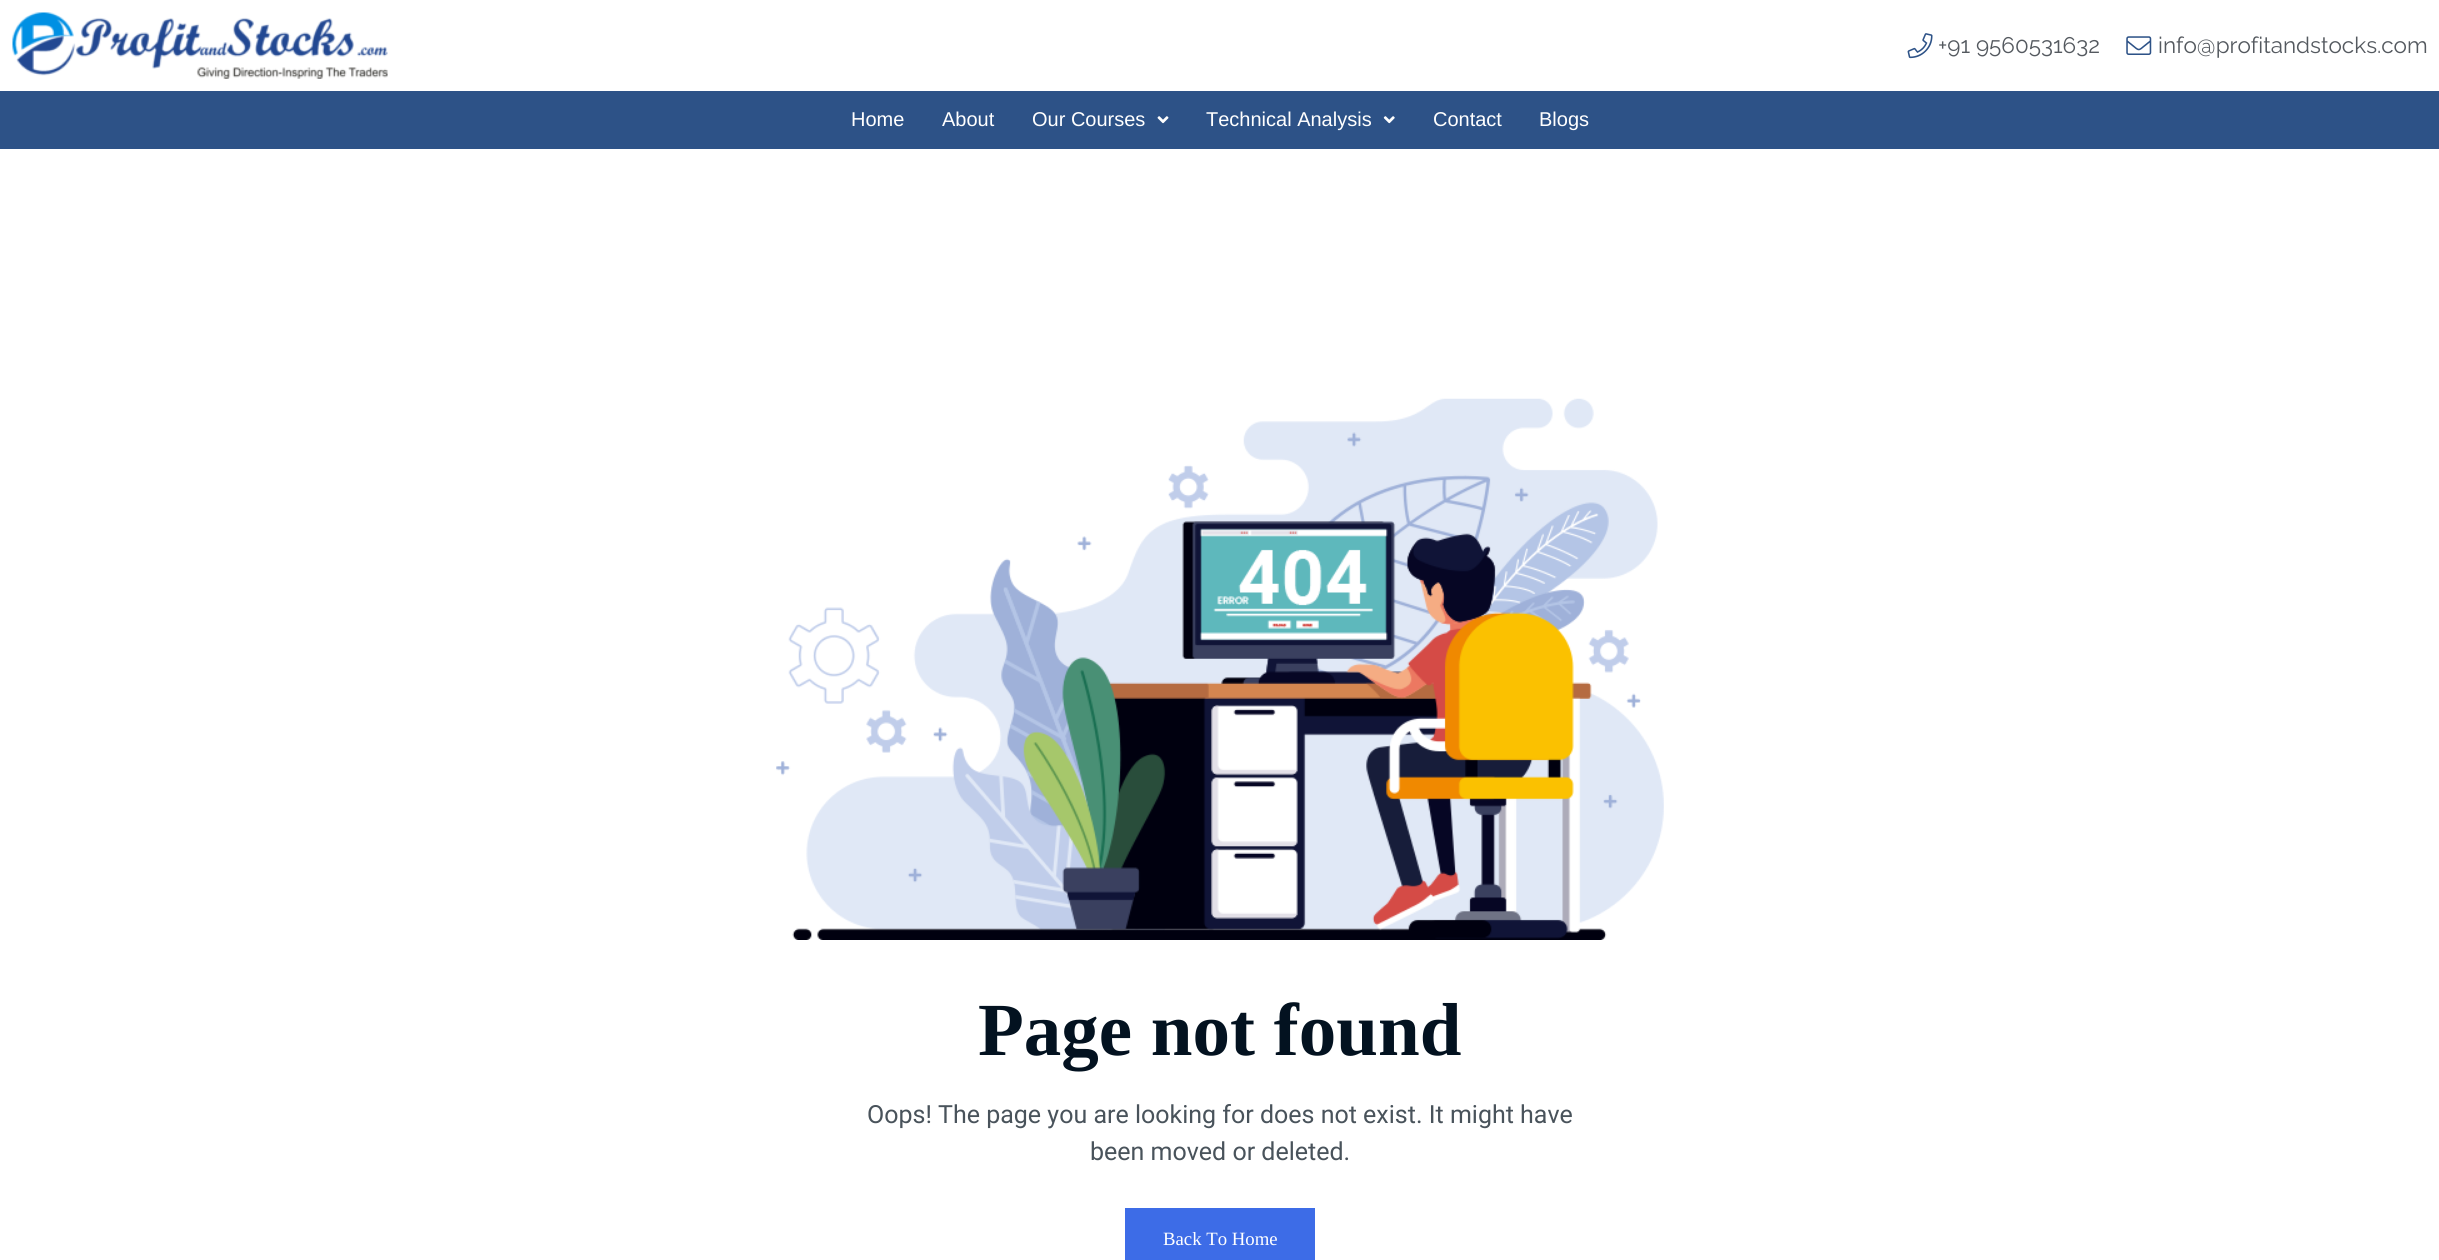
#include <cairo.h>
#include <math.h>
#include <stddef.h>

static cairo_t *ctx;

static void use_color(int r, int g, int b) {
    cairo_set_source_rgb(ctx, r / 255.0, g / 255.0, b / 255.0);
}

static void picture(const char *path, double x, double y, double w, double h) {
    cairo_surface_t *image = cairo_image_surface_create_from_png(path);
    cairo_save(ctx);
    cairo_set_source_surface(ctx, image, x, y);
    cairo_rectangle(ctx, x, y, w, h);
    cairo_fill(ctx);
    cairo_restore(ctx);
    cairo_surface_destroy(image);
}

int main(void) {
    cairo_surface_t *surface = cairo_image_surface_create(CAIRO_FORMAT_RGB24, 2439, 1260);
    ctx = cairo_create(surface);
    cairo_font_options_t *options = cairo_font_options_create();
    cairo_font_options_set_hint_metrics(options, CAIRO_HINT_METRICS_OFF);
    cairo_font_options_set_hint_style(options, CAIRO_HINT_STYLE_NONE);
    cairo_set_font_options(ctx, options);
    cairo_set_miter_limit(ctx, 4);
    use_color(255, 255, 255);
    cairo_paint(ctx);
    picture("img1.png", 12, 12, 376, 67);
    picture("img2.png", 1907, 33, 26, 26);
    cairo_select_font_face(ctx, "Raleway Thin", CAIRO_FONT_SLANT_NORMAL, CAIRO_FONT_WEIGHT_NORMAL);
    cairo_set_font_size(ctx, 22.5);
    use_color(84, 89, 95);
    cairo_move_to(ctx, 1938, 53);
    cairo_show_text(ctx, "+91 9560531632");
    picture("img3.png", 2126, 36, 26, 19);
    cairo_move_to(ctx, 2158, 53);
    cairo_show_text(ctx, "info@profitandstocks.com");
    use_color(45, 82, 135);
    cairo_rectangle(ctx, 0, 91, 2439, 58);
    cairo_fill(ctx);
    cairo_select_font_face(ctx, "Liberation Sans", CAIRO_FONT_SLANT_NORMAL, CAIRO_FONT_WEIGHT_NORMAL);
    cairo_set_font_size(ctx, 20);
    use_color(255, 255, 255);
    cairo_move_to(ctx, 851, 126);
    cairo_show_text(ctx, "Home");
    cairo_move_to(ctx, 942, 126);
    cairo_show_text(ctx, "About");
    cairo_move_to(ctx, 1032, 126);
    cairo_show_text(ctx, "Our Courses");
    picture("img4.png", 1157, 116, 12, 8);
    cairo_move_to(ctx, 1206, 126);
    cairo_show_text(ctx, "Technical Analysis");
    picture("img5.png", 1383, 116, 12, 8);
    cairo_move_to(ctx, 1433, 126);
    cairo_show_text(ctx, "Contact");
    cairo_move_to(ctx, 1539, 126);
    cairo_show_text(ctx, "Blogs");
    picture("img6.png", 776, 398, 888, 542);
    cairo_select_font_face(ctx, "Liberation Serif", CAIRO_FONT_SLANT_NORMAL, CAIRO_FONT_WEIGHT_BOLD);
    cairo_set_font_size(ctx, 75);
    use_color(3, 18, 32);
    cairo_move_to(ctx, 978, 1055);
    cairo_show_text(ctx, "Page not found");
    cairo_select_font_face(ctx, "Roboto", CAIRO_FONT_SLANT_NORMAL, CAIRO_FONT_WEIGHT_NORMAL);
    cairo_set_font_size(ctx, 25);
    use_color(73, 83, 91);
    cairo_move_to(ctx, 867, 1123);
    cairo_show_text(ctx, "Oops! The page you are looking for does not exist. It might have");
    cairo_move_to(ctx, 1090, 1160);
    cairo_show_text(ctx, "been moved or deleted.");
    use_color(61, 108, 231);
    cairo_rectangle(ctx, 1125, 1208, 190, 52);
    cairo_fill(ctx);
    cairo_select_font_face(ctx, "Liberation Serif", CAIRO_FONT_SLANT_NORMAL, CAIRO_FONT_WEIGHT_NORMAL);
    cairo_set_font_size(ctx, 18.75);
    use_color(255, 255, 255);
    cairo_move_to(ctx, 1163, 1245);
    cairo_show_text(ctx, "Back To Home");
    cairo_surface_write_to_png(surface, "result.png");
    cairo_font_options_destroy(options);
    cairo_destroy(ctx);
    cairo_surface_destroy(surface);
    return 0;
}
